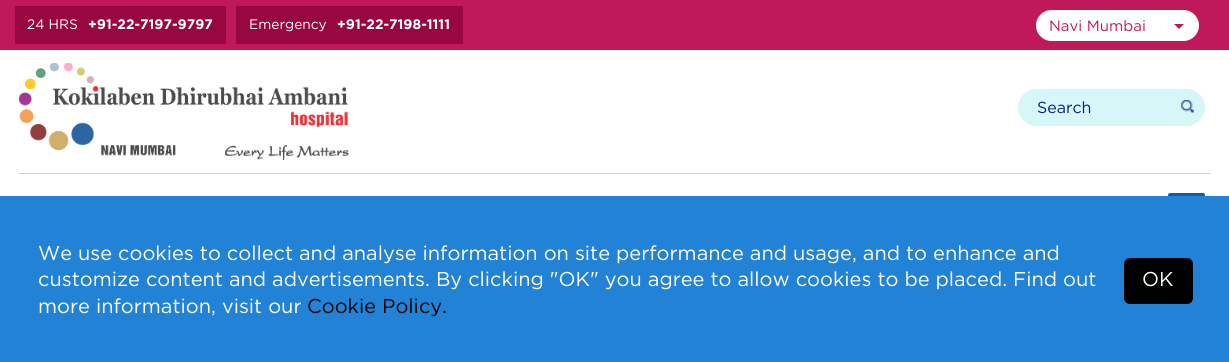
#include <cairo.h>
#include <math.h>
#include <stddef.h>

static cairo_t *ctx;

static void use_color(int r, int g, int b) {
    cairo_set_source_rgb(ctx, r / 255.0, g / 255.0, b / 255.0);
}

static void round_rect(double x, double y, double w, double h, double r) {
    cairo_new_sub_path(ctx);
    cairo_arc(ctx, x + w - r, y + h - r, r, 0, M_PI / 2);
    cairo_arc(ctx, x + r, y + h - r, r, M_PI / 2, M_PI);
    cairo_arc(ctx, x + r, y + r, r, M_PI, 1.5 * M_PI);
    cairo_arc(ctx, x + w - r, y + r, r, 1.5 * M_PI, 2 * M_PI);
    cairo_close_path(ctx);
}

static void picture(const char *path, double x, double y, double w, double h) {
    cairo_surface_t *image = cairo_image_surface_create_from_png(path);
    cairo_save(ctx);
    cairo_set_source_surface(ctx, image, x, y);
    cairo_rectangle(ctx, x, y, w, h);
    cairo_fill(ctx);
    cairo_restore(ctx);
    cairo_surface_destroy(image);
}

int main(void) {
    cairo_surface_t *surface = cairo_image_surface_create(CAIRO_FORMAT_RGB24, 1229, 362);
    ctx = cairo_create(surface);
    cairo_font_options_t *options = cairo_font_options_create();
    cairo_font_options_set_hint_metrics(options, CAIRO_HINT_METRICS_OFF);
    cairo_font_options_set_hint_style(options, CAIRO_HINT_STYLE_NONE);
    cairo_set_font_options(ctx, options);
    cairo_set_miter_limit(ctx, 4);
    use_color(255, 255, 255);
    cairo_paint(ctx);
    use_color(192, 25, 91);
    cairo_rectangle(ctx, 0, 0, 1229, 50);
    cairo_fill(ctx);
    use_color(152, 7, 64);
    cairo_rectangle(ctx, 15, 6, 211, 38);
    cairo_fill(ctx);
    cairo_select_font_face(ctx, "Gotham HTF", CAIRO_FONT_SLANT_NORMAL, CAIRO_FONT_WEIGHT_NORMAL);
    cairo_set_font_size(ctx, 13.75);
    use_color(255, 255, 255);
    cairo_move_to(ctx, 27, 29);
    cairo_show_text(ctx, "24 HRS");
    cairo_select_font_face(ctx, "Gotham HTF", CAIRO_FONT_SLANT_NORMAL, CAIRO_FONT_WEIGHT_BOLD);
    cairo_move_to(ctx, 88, 29);
    cairo_show_text(ctx, "+91-22-7197-9797");
    use_color(152, 7, 64);
    cairo_rectangle(ctx, 236, 6, 227, 38);
    cairo_fill(ctx);
    cairo_select_font_face(ctx, "Gotham HTF", CAIRO_FONT_SLANT_NORMAL, CAIRO_FONT_WEIGHT_NORMAL);
    use_color(255, 255, 255);
    cairo_move_to(ctx, 249, 29);
    cairo_show_text(ctx, "Emergency");
    cairo_select_font_face(ctx, "Gotham HTF", CAIRO_FONT_SLANT_NORMAL, CAIRO_FONT_WEIGHT_BOLD);
    cairo_move_to(ctx, 337, 29);
    cairo_show_text(ctx, "+91-22-7198-1111");
    round_rect(1036, 10, 163, 31, 15.5);
    cairo_fill(ctx);
    cairo_select_font_face(ctx, "Gotham HTF", CAIRO_FONT_SLANT_NORMAL, CAIRO_FONT_WEIGHT_NORMAL);
    cairo_set_font_size(ctx, 15);
    use_color(192, 25, 91);
    cairo_move_to(ctx, 1049, 31);
    cairo_show_text(ctx, "Navi Mumbai");
    cairo_new_path(ctx);
    cairo_move_to(ctx, 1174, 24);
    cairo_line_to(ctx, 1184, 24);
    cairo_line_to(ctx, 1179, 29);
    cairo_close_path(ctx);
    cairo_fill(ctx);
    picture("img1.png", 19, 63, 330, 97);
    use_color(215, 246, 248);
    round_rect(1018, 89, 187, 37, 18.5);
    cairo_fill(ctx);
    cairo_set_font_size(ctx, 16);
    use_color(8, 33, 120);
    cairo_move_to(ctx, 1037, 113);
    cairo_show_text(ctx, "Search");
    picture("img2.png", 1181, 100, 13, 13);
    use_color(210, 208, 208);
    cairo_rectangle(ctx, 19, 173, 1192, 1);
    cairo_fill(ctx);
    use_color(20, 93, 162);
    round_rect(1168, 193, 37, 4, 2);
    cairo_fill(ctx);
    use_color(34, 130, 214);
    cairo_rectangle(ctx, 0, 196, 1229, 166);
    cairo_fill(ctx);
    cairo_set_font_size(ctx, 20);
    use_color(255, 255, 255);
    cairo_move_to(ctx, 38, 260);
    cairo_show_text(ctx, "We use cookies to collect and analyse information on site performance and usage, and to enhance and");
    cairo_move_to(ctx, 38, 286);
    cairo_show_text(ctx, "customize content and advertisements. By clicking \"OK\" you agree to allow cookies to be placed. Find out");
    cairo_move_to(ctx, 38, 313);
    cairo_show_text(ctx, "more information, visit our");
    use_color(0, 0, 0);
    cairo_move_to(ctx, 307, 313);
    cairo_show_text(ctx, "Cookie Policy.");
    round_rect(1124, 258, 69, 46, 6);
    cairo_fill(ctx);
    use_color(255, 255, 255);
    cairo_move_to(ctx, 1142, 286);
    cairo_show_text(ctx, "OK");
    cairo_surface_write_to_png(surface, "result.png");
    cairo_font_options_destroy(options);
    cairo_destroy(ctx);
    cairo_surface_destroy(surface);
    return 0;
}
